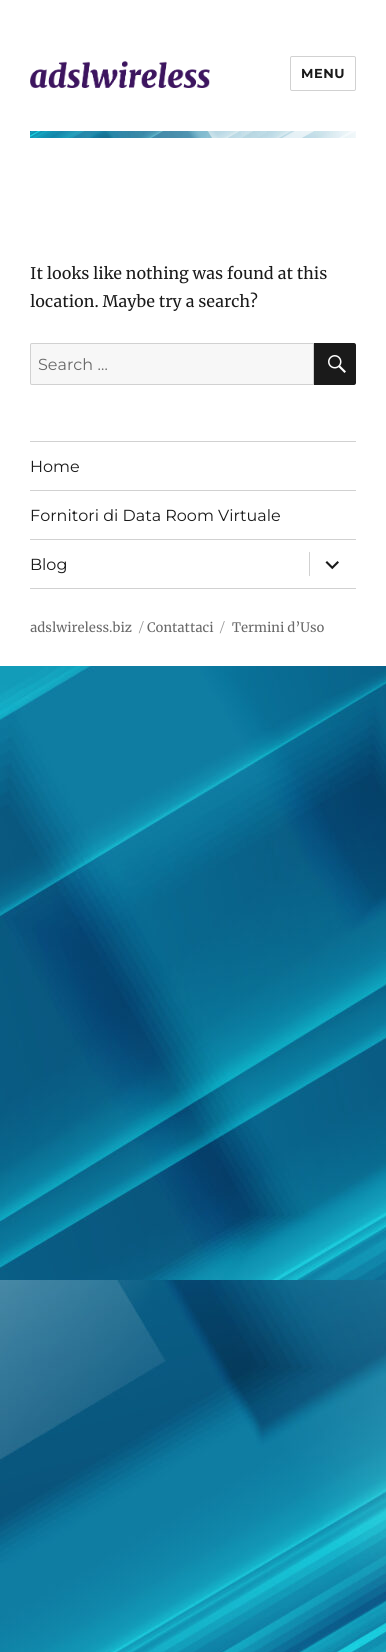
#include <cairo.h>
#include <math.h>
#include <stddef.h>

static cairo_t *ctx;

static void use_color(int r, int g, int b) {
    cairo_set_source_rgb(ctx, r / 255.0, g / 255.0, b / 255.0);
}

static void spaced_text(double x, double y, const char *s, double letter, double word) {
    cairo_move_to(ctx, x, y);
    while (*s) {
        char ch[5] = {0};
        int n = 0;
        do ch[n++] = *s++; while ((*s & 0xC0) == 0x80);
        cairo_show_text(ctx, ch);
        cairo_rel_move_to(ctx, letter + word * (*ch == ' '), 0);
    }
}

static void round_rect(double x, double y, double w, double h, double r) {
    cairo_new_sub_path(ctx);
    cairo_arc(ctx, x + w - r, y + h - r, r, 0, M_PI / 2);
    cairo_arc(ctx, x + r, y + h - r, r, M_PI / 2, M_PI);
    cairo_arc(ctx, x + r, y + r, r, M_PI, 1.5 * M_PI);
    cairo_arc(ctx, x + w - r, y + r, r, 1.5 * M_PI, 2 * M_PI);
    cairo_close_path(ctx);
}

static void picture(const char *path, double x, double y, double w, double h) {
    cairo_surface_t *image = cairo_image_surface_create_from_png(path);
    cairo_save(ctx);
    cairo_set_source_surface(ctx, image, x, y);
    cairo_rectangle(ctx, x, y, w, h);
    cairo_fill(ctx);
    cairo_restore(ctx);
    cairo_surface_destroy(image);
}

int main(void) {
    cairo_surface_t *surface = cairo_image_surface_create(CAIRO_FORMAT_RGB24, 386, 1652);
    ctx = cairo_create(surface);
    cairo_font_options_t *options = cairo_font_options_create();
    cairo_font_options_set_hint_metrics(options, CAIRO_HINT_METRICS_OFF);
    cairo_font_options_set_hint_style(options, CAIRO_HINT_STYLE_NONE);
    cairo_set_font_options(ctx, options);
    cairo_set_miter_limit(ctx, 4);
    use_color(255, 255, 255);
    cairo_paint(ctx);
    picture("img1.png", 0, 666, 386, 986);
    picture("img2.png", 30, 61, 180, 27);
    round_rect(290.5, 56.5, 65, 34, 1.5);
    use_color(209, 209, 209);
    cairo_set_line_width(ctx, 1);
    cairo_stroke(ctx);
    cairo_select_font_face(ctx, "Montserrat Thin", CAIRO_FONT_SLANT_NORMAL, CAIRO_FONT_WEIGHT_NORMAL);
    cairo_set_font_size(ctx, 13);
    use_color(26, 26, 26);
    spaced_text(301, 78, "MENU", 0.5, 0);
    picture("img3.png", 30, 131, 326, 7);
    cairo_select_font_face(ctx, "Merriweather", CAIRO_FONT_SLANT_NORMAL, CAIRO_FONT_WEIGHT_NORMAL);
    cairo_set_font_size(ctx, 16);
    cairo_move_to(ctx, 30, 279);
    cairo_show_text(ctx, "It looks like nothing was found at this");
    cairo_move_to(ctx, 30, 307);
    cairo_show_text(ctx, "location. Maybe try a search?");
    use_color(247, 247, 247);
    cairo_new_path(ctx);
    cairo_move_to(ctx, 32, 343.5);
    cairo_line_to(ctx, 313.5, 343.5);
    cairo_line_to(ctx, 313.5, 384.5);
    cairo_line_to(ctx, 32, 384.5);
    cairo_curve_to(ctx, 31, 384.5, 30.5, 384, 30.5, 383);
    cairo_line_to(ctx, 30.5, 345);
    cairo_curve_to(ctx, 30.5, 344, 31, 343.5, 32, 343.5);
    cairo_close_path(ctx);
    cairo_fill_preserve(ctx);
    use_color(209, 209, 209);
    cairo_stroke(ctx);
    cairo_select_font_face(ctx, "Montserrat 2 Thin", CAIRO_FONT_SLANT_NORMAL, CAIRO_FONT_WEIGHT_NORMAL);
    use_color(104, 104, 104);
    cairo_move_to(ctx, 38, 370);
    cairo_show_text(ctx, "Search …");
    use_color(26, 26, 26);
    cairo_new_path(ctx);
    cairo_move_to(ctx, 314, 343);
    cairo_line_to(ctx, 354, 343);
    cairo_curve_to(ctx, 355, 343, 356, 344, 356, 345);
    cairo_line_to(ctx, 356, 383);
    cairo_curve_to(ctx, 356, 384, 355, 385, 354, 385);
    cairo_line_to(ctx, 314, 385);
    cairo_close_path(ctx);
    cairo_fill(ctx);
    picture("img4.png", 328, 355, 18, 18);
    use_color(209, 209, 209);
    cairo_rectangle(ctx, 30, 588, 326, 1);
    cairo_fill(ctx);
    cairo_rectangle(ctx, 30, 441, 326, 1);
    cairo_fill(ctx);
    use_color(26, 26, 26);
    cairo_move_to(ctx, 30, 472);
    cairo_show_text(ctx, "Home");
    use_color(209, 209, 209);
    cairo_rectangle(ctx, 30, 490, 326, 1);
    cairo_fill(ctx);
    use_color(26, 26, 26);
    cairo_move_to(ctx, 30, 521);
    cairo_show_text(ctx, "Fornitori di Data Room Virtuale");
    use_color(209, 209, 209);
    cairo_rectangle(ctx, 30, 539, 326, 1);
    cairo_fill(ctx);
    use_color(26, 26, 26);
    cairo_move_to(ctx, 30, 570);
    cairo_show_text(ctx, "Blog");
    use_color(209, 209, 209);
    cairo_rectangle(ctx, 309, 552, 1, 24);
    cairo_fill(ctx);
    picture("img5.png", 325, 561, 14, 9);
    cairo_select_font_face(ctx, "Merriweather", CAIRO_FONT_SLANT_NORMAL, CAIRO_FONT_WEIGHT_NORMAL);
    cairo_set_font_size(ctx, 13);
    use_color(104, 104, 104);
    cairo_move_to(ctx, 30, 632);
    cairo_show_text(ctx, "adslwireless.biz");
    cairo_select_font_face(ctx, "Montserrat 2 Thin", CAIRO_FONT_SLANT_NORMAL, CAIRO_FONT_WEIGHT_NORMAL);
    use_color(149, 149, 149);
    cairo_move_to(ctx, 139, 632);
    cairo_show_text(ctx, "/");
    cairo_select_font_face(ctx, "Merriweather", CAIRO_FONT_SLANT_NORMAL, CAIRO_FONT_WEIGHT_NORMAL);
    use_color(104, 104, 104);
    cairo_move_to(ctx, 147, 632);
    cairo_show_text(ctx, "Contattaci");
    cairo_select_font_face(ctx, "Montserrat 2 Thin", CAIRO_FONT_SLANT_NORMAL, CAIRO_FONT_WEIGHT_NORMAL);
    use_color(149, 149, 149);
    cairo_move_to(ctx, 220, 632);
    cairo_show_text(ctx, "/");
    cairo_select_font_face(ctx, "Merriweather", CAIRO_FONT_SLANT_NORMAL, CAIRO_FONT_WEIGHT_NORMAL);
    use_color(104, 104, 104);
    cairo_move_to(ctx, 232, 632);
    cairo_show_text(ctx, "Termini d’Uso");
    cairo_surface_write_to_png(surface, "result.png");
    cairo_font_options_destroy(options);
    cairo_destroy(ctx);
    cairo_surface_destroy(surface);
    return 0;
}
